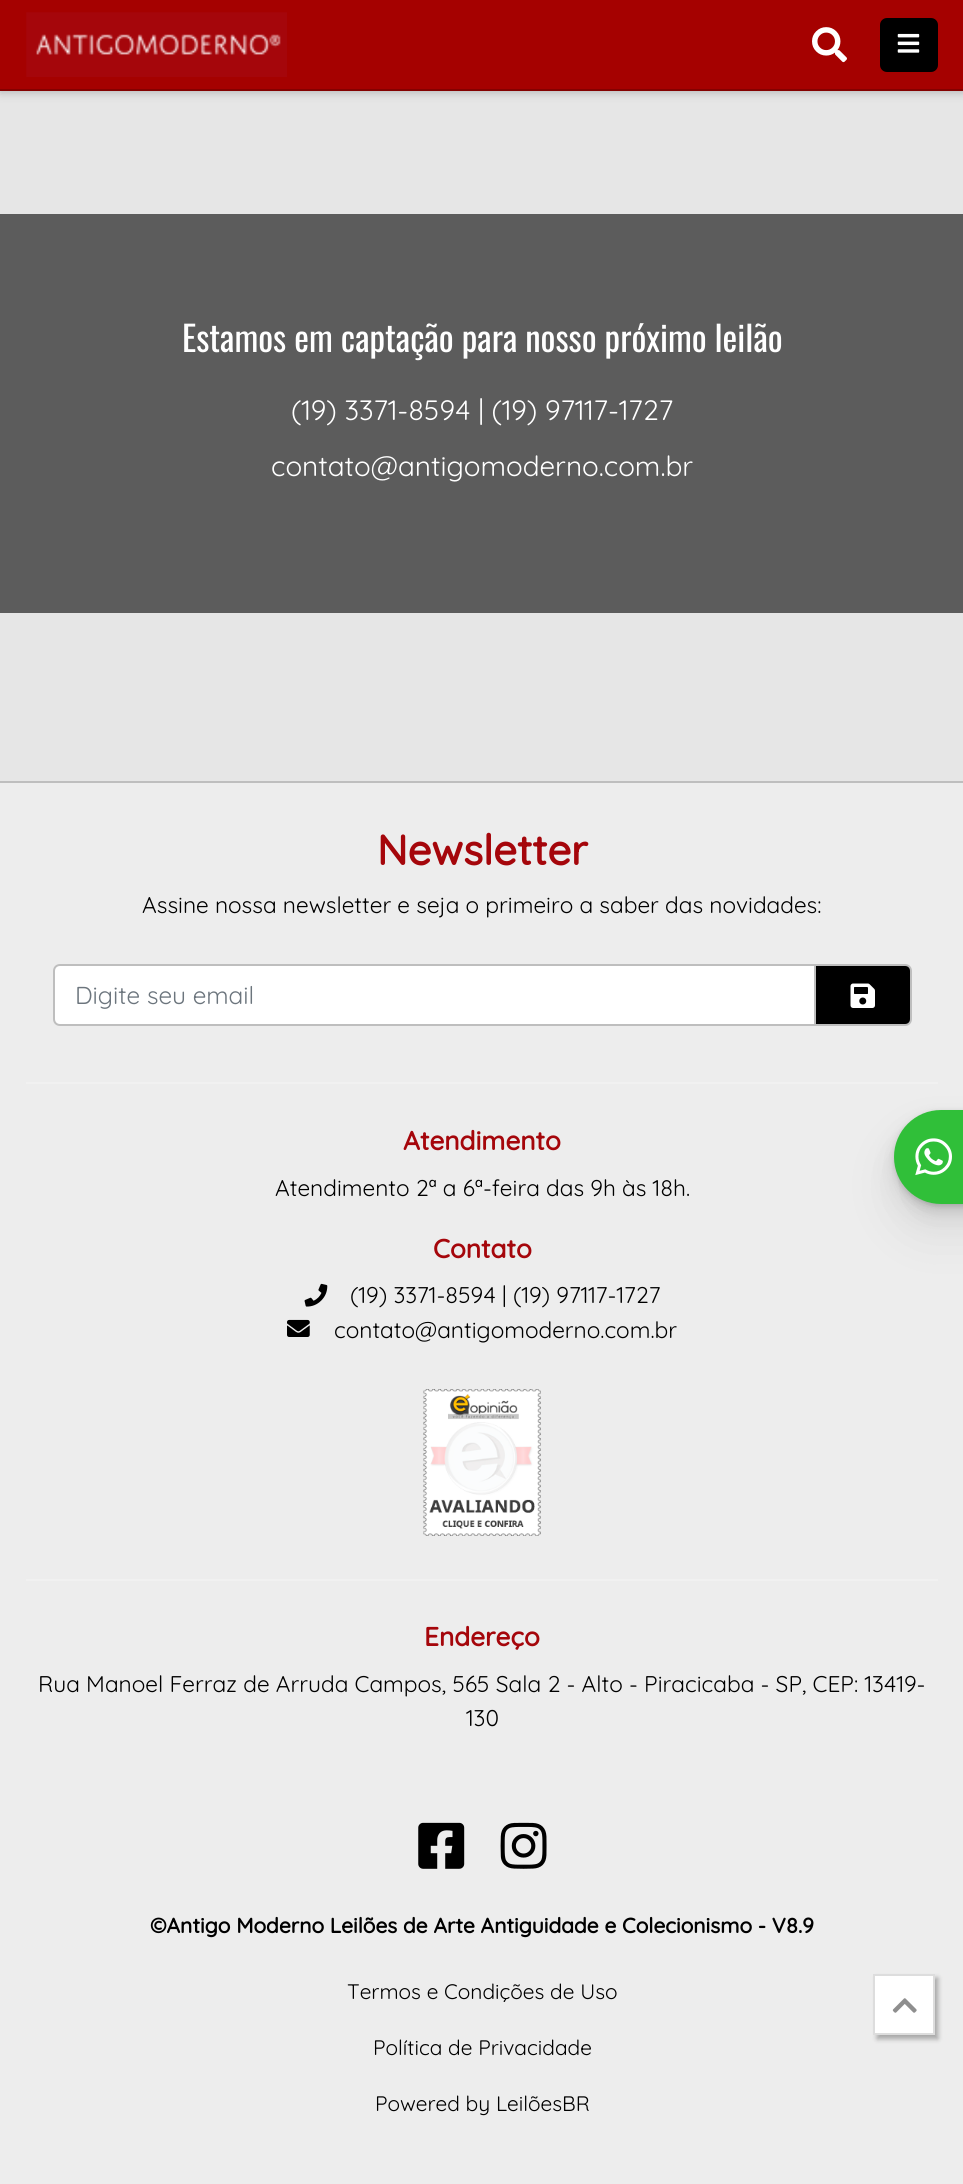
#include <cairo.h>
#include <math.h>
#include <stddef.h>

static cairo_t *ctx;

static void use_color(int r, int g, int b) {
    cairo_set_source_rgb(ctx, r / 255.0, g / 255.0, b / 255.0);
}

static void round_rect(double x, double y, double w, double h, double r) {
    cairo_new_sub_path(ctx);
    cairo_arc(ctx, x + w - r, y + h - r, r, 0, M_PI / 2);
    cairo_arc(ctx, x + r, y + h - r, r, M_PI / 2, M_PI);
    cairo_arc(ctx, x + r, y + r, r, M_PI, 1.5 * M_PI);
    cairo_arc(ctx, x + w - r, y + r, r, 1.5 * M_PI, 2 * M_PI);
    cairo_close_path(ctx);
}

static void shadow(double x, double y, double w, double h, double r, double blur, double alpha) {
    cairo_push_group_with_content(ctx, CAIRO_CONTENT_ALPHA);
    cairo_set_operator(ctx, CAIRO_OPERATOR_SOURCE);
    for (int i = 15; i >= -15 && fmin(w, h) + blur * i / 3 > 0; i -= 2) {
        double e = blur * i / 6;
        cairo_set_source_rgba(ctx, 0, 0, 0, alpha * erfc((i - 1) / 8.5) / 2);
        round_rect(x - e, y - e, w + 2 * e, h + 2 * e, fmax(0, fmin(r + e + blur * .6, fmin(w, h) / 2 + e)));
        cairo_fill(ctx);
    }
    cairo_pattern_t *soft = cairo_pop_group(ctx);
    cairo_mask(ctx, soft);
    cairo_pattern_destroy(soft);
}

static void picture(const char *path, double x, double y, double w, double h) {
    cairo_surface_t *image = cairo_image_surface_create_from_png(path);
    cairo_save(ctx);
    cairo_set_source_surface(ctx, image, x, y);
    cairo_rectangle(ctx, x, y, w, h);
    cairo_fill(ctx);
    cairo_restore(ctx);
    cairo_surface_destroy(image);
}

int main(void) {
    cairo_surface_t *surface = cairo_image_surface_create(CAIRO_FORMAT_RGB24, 963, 2184);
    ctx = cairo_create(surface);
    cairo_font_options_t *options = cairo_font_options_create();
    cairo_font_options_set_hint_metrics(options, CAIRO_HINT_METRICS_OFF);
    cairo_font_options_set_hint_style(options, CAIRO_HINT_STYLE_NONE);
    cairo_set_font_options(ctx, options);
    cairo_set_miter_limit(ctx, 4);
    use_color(237, 237, 237);
    cairo_paint(ctx);
    use_color(230, 230, 230);
    cairo_rectangle(ctx, 0, 91, 963, 690);
    cairo_fill(ctx);
    use_color(0, 0, 0);
    shadow(0, 2, 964, 91, 0, 4.5, 0.2);
    use_color(165, 1, 0);
    cairo_rectangle(ctx, 0, 0, 963, 89);
    cairo_fill(ctx);
    use_color(132, 1, 0);
    cairo_rectangle(ctx, 0, 89, 963, 2);
    cairo_fill(ctx);
    picture("img1.png", 26, 12, 261, 65);
    picture("img2.png", 812, 27, 35, 36);
    use_color(0, 0, 0);
    round_rect(880, 18, 58, 54, 7);
    cairo_fill(ctx);
    picture("img3.png", 897, 33, 23, 20);
    use_color(92, 92, 92);
    cairo_rectangle(ctx, 0, 214, 963, 399);
    cairo_fill(ctx);
    cairo_select_font_face(ctx, "Oswald", CAIRO_FONT_SLANT_NORMAL, CAIRO_FONT_WEIGHT_NORMAL);
    cairo_set_font_size(ctx, 35);
    use_color(255, 255, 255);
    cairo_move_to(ctx, 182, 352);
    cairo_show_text(ctx, "Estamos em captação para nosso próximo leilão");
    cairo_select_font_face(ctx, "Quicksand Light", CAIRO_FONT_SLANT_NORMAL, CAIRO_FONT_WEIGHT_NORMAL);
    cairo_set_font_size(ctx, 28);
    cairo_move_to(ctx, 291, 420);
    cairo_show_text(ctx, "(19) 3371-8594 | (19) 97117-1727");
    cairo_move_to(ctx, 271, 476);
    cairo_show_text(ctx, "contato@antigomoderno.com.br");
    use_color(190, 190, 190);
    cairo_rectangle(ctx, 0, 781, 963, 2);
    cairo_fill(ctx);
    cairo_select_font_face(ctx, "Quicksand", CAIRO_FONT_SLANT_NORMAL, CAIRO_FONT_WEIGHT_BOLD);
    cairo_set_font_size(ctx, 42);
    use_color(165, 6, 11);
    cairo_move_to(ctx, 377, 865);
    cairo_show_text(ctx, "Newsletter");
    cairo_select_font_face(ctx, "Quicksand Light", CAIRO_FONT_SLANT_NORMAL, CAIRO_FONT_WEIGHT_NORMAL);
    cairo_set_font_size(ctx, 22.75);
    use_color(0, 0, 0);
    cairo_move_to(ctx, 142, 913);
    cairo_show_text(ctx, "Assine nossa newsletter e seja o primeiro a saber das novidades:");
    cairo_new_path(ctx);
    cairo_move_to(ctx, 815, 965);
    cairo_line_to(ctx, 905, 965);
    cairo_curve_to(ctx, 908.5, 965, 911, 967.5, 911, 971);
    cairo_line_to(ctx, 911, 1019);
    cairo_curve_to(ctx, 911, 1022.5, 908.5, 1025, 905, 1025);
    cairo_line_to(ctx, 815, 1025);
    cairo_close_path(ctx);
    cairo_fill_preserve(ctx);
    use_color(190, 190, 190);
    cairo_stroke(ctx);
    use_color(255, 255, 255);
    cairo_new_path(ctx);
    cairo_move_to(ctx, 60, 965);
    cairo_line_to(ctx, 815, 965);
    cairo_line_to(ctx, 815, 1025);
    cairo_line_to(ctx, 60, 1025);
    cairo_curve_to(ctx, 56.5, 1025, 54, 1022.5, 54, 1019);
    cairo_line_to(ctx, 54, 971);
    cairo_curve_to(ctx, 54, 967.5, 56.5, 965, 60, 965);
    cairo_close_path(ctx);
    cairo_fill_preserve(ctx);
    use_color(190, 190, 190);
    cairo_stroke(ctx);
    cairo_set_font_size(ctx, 24.5);
    use_color(108, 117, 125);
    cairo_move_to(ctx, 75, 1004);
    cairo_show_text(ctx, "Digite seu email");
    picture("img4.png", 850, 983, 25, 25);
    use_color(241, 241, 241);
    cairo_rectangle(ctx, 26, 1082, 912, 2);
    cairo_fill(ctx);
    cairo_select_font_face(ctx, "Quicksand", CAIRO_FONT_SLANT_NORMAL, CAIRO_FONT_WEIGHT_BOLD);
    cairo_set_font_size(ctx, 26.25);
    use_color(165, 6, 11);
    cairo_move_to(ctx, 403, 1150);
    cairo_show_text(ctx, "Atendimento");
    cairo_select_font_face(ctx, "Quicksand Light", CAIRO_FONT_SLANT_NORMAL, CAIRO_FONT_WEIGHT_NORMAL);
    cairo_set_font_size(ctx, 22.75);
    use_color(0, 0, 0);
    cairo_move_to(ctx, 275, 1196);
    cairo_show_text(ctx, "Atendimento 2ª a 6ª-feira das 9h às 18h.");
    cairo_select_font_face(ctx, "Quicksand", CAIRO_FONT_SLANT_NORMAL, CAIRO_FONT_WEIGHT_BOLD);
    cairo_set_font_size(ctx, 26.25);
    use_color(165, 6, 11);
    cairo_move_to(ctx, 433, 1258);
    cairo_show_text(ctx, "Contato");
    picture("img5.png", 304, 1283, 24, 24);
    cairo_select_font_face(ctx, "Quicksand Light", CAIRO_FONT_SLANT_NORMAL, CAIRO_FONT_WEIGHT_NORMAL);
    cairo_set_font_size(ctx, 22.75);
    use_color(0, 0, 0);
    cairo_move_to(ctx, 350, 1303);
    cairo_show_text(ctx, "(19) 3371-8594 | (19) 97117-1727");
    picture("img6.png", 287, 1319, 23, 18);
    cairo_move_to(ctx, 334, 1338);
    cairo_show_text(ctx, "contato@antigomoderno.com.br");
    picture("img7.png", 423, 1389, 118, 147);
    use_color(241, 241, 241);
    cairo_rectangle(ctx, 26, 1579, 912, 2);
    cairo_fill(ctx);
    cairo_select_font_face(ctx, "Quicksand", CAIRO_FONT_SLANT_NORMAL, CAIRO_FONT_WEIGHT_BOLD);
    cairo_set_font_size(ctx, 26.25);
    use_color(165, 6, 11);
    cairo_move_to(ctx, 424, 1646);
    cairo_show_text(ctx, "Endereço");
    cairo_select_font_face(ctx, "Quicksand Light", CAIRO_FONT_SLANT_NORMAL, CAIRO_FONT_WEIGHT_NORMAL);
    cairo_set_font_size(ctx, 22.75);
    use_color(0, 0, 0);
    cairo_move_to(ctx, 38, 1692);
    cairo_show_text(ctx, "Rua Manoel Ferraz de Arruda Campos, 565 Sala 2 - Alto - Piracicaba - SP, CEP: 13419-");
    cairo_move_to(ctx, 466, 1726);
    cairo_show_text(ctx, "130");
    picture("img8.png", 418, 1822, 47, 47);
    picture("img9.png", 500, 1822, 47, 47);
    cairo_select_font_face(ctx, "Quicksand", CAIRO_FONT_SLANT_NORMAL, CAIRO_FONT_WEIGHT_BOLD);
    cairo_set_font_size(ctx, 21);
    cairo_move_to(ctx, 150, 1933);
    cairo_show_text(ctx, "©Antigo Moderno Leilões de Arte Antiguidade e Colecionismo - V8.9");
    cairo_select_font_face(ctx, "Quicksand Light", CAIRO_FONT_SLANT_NORMAL, CAIRO_FONT_WEIGHT_NORMAL);
    cairo_move_to(ctx, 347, 1999);
    cairo_show_text(ctx, "Termos e Condições de Uso");
    cairo_move_to(ctx, 373, 2055);
    cairo_show_text(ctx, "Política de Privacidade");
    cairo_move_to(ctx, 375, 2111);
    cairo_show_text(ctx, "Powered by LeilõesBR");
    use_color(0, 0, 0);
    shadow(894, 1138, 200, 94, 47, 28, 0.07);
    shadow(894, 1124, 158, 94, 47, 14, 0.07);
    shadow(894, 1117, 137, 94, 47, 7, 0.07);
    shadow(894, 1113, 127, 95, 47.5, 3.5, 0.07);
    shadow(894, 1111, 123, 95, 47.5, 2, 0.07);
    use_color(48, 191, 57);
    round_rect(894, 1110, 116, 94, 47);
    cairo_fill(ctx);
    picture("img10.png", 915, 1138, 37, 38);
    use_color(0, 0, 0);
    shadow(877, 1978, 61, 61, 0, 2.5, 0.3);
    use_color(255, 255, 255);
    cairo_rectangle(ctx, 874, 1975, 60, 59);
    cairo_fill_preserve(ctx);
    use_color(221, 221, 221);
    cairo_stroke(ctx);
    picture("img11.png", 892, 1998, 25, 15);
    cairo_surface_write_to_png(surface, "result.png");
    cairo_font_options_destroy(options);
    cairo_destroy(ctx);
    cairo_surface_destroy(surface);
    return 0;
}
